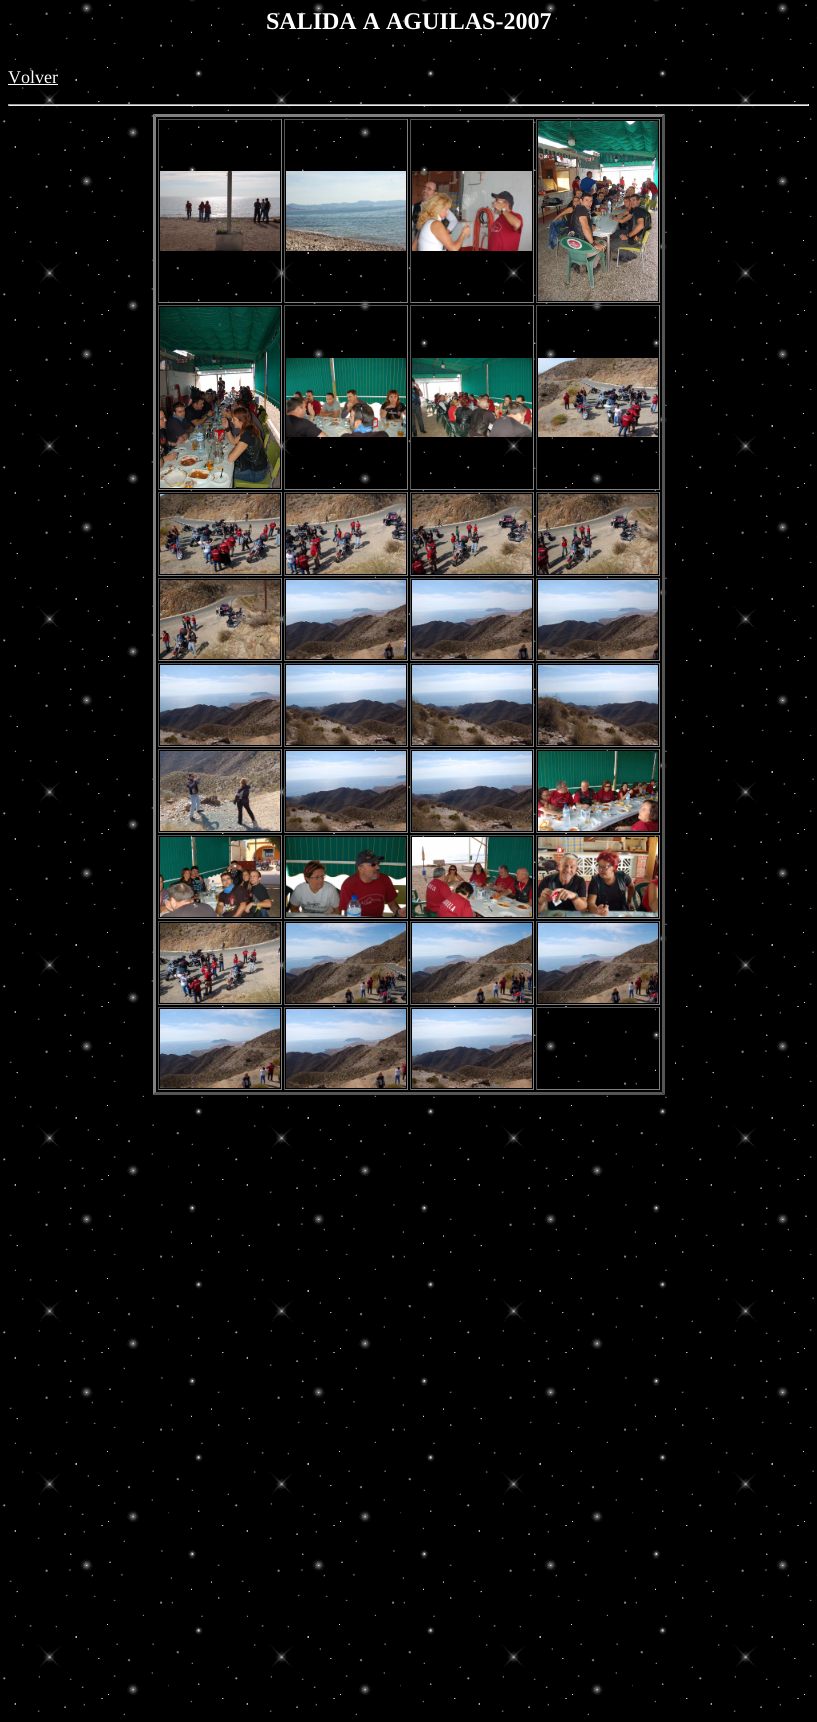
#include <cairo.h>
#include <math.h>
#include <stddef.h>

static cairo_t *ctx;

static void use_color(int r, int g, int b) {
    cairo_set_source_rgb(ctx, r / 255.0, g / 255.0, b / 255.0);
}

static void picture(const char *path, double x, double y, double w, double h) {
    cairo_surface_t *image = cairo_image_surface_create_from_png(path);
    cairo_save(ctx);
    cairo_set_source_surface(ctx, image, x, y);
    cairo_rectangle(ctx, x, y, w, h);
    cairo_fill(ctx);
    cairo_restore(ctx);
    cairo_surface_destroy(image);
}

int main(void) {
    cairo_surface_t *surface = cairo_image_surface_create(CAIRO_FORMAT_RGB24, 817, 1722);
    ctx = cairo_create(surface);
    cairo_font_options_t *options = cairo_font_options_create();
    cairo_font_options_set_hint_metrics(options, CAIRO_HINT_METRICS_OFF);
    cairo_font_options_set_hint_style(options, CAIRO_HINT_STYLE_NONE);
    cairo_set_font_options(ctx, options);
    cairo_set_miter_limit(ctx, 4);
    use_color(255, 255, 255);
    cairo_paint(ctx);
    picture("img1.png", 0, 0, 817, 1722);
    cairo_select_font_face(ctx, "Liberation Serif", CAIRO_FONT_SLANT_NORMAL, CAIRO_FONT_WEIGHT_BOLD);
    cairo_set_font_size(ctx, 24);
    use_color(255, 255, 255);
    cairo_move_to(ctx, 266, 29);
    cairo_show_text(ctx, "SALIDA A AGUILAS-2007");
    cairo_select_font_face(ctx, "Liberation Serif", CAIRO_FONT_SLANT_NORMAL, CAIRO_FONT_WEIGHT_NORMAL);
    cairo_set_font_size(ctx, 18);
    cairo_move_to(ctx, 8, 83);
    cairo_show_text(ctx, "Volver");
    cairo_rectangle(ctx, 8, 84, 50, 1);
    cairo_fill(ctx);
    use_color(159, 159, 159);
    cairo_rectangle(ctx, 8, 104, 801, 1);
    cairo_fill(ctx);
    use_color(238, 238, 238);
    cairo_rectangle(ctx, 808, 104, 1, 2);
    cairo_fill(ctx);
    cairo_rectangle(ctx, 8, 105, 801, 1);
    cairo_fill(ctx);
    use_color(159, 159, 159);
    cairo_rectangle(ctx, 8, 104, 1, 2);
    cairo_fill(ctx);
    use_color(128, 128, 128);
    cairo_new_path(ctx);
    cairo_move_to(ctx, 153, 114);
    cairo_line_to(ctx, 665, 114);
    cairo_line_to(ctx, 662, 117);
    cairo_line_to(ctx, 156, 117);
    cairo_close_path(ctx);
    cairo_fill(ctx);
    use_color(85, 85, 85);
    cairo_new_path(ctx);
    cairo_move_to(ctx, 665, 114);
    cairo_line_to(ctx, 665, 1095);
    cairo_line_to(ctx, 662, 1092);
    cairo_line_to(ctx, 662, 117);
    cairo_close_path(ctx);
    cairo_fill(ctx);
    cairo_new_path(ctx);
    cairo_move_to(ctx, 665, 1095);
    cairo_line_to(ctx, 153, 1095);
    cairo_line_to(ctx, 156, 1092);
    cairo_line_to(ctx, 662, 1092);
    cairo_close_path(ctx);
    cairo_fill(ctx);
    use_color(128, 128, 128);
    cairo_new_path(ctx);
    cairo_move_to(ctx, 153, 1095);
    cairo_line_to(ctx, 153, 114);
    cairo_line_to(ctx, 156, 117);
    cairo_line_to(ctx, 156, 1092);
    cairo_close_path(ctx);
    cairo_fill(ctx);
    use_color(85, 85, 85);
    cairo_rectangle(ctx, 158, 119, 124, 1);
    cairo_fill(ctx);
    use_color(128, 128, 128);
    cairo_rectangle(ctx, 281, 119, 1, 184);
    cairo_fill(ctx);
    cairo_rectangle(ctx, 158, 302, 124, 1);
    cairo_fill(ctx);
    use_color(85, 85, 85);
    cairo_rectangle(ctx, 158, 119, 1, 184);
    cairo_fill(ctx);
    picture("img2.png", 160, 171, 120, 80);
    cairo_rectangle(ctx, 284, 119, 124, 1);
    cairo_fill(ctx);
    use_color(128, 128, 128);
    cairo_rectangle(ctx, 407, 119, 1, 184);
    cairo_fill(ctx);
    cairo_rectangle(ctx, 284, 302, 124, 1);
    cairo_fill(ctx);
    use_color(85, 85, 85);
    cairo_rectangle(ctx, 284, 119, 1, 184);
    cairo_fill(ctx);
    picture("img3.png", 286, 171, 120, 80);
    cairo_rectangle(ctx, 410, 119, 124, 1);
    cairo_fill(ctx);
    use_color(128, 128, 128);
    cairo_rectangle(ctx, 533, 119, 1, 184);
    cairo_fill(ctx);
    cairo_rectangle(ctx, 410, 302, 124, 1);
    cairo_fill(ctx);
    use_color(85, 85, 85);
    cairo_rectangle(ctx, 410, 119, 1, 184);
    cairo_fill(ctx);
    picture("img4.png", 412, 171, 120, 80);
    cairo_rectangle(ctx, 536, 119, 124, 1);
    cairo_fill(ctx);
    use_color(128, 128, 128);
    cairo_rectangle(ctx, 659, 119, 1, 184);
    cairo_fill(ctx);
    cairo_rectangle(ctx, 536, 302, 124, 1);
    cairo_fill(ctx);
    use_color(85, 85, 85);
    cairo_rectangle(ctx, 536, 119, 1, 184);
    cairo_fill(ctx);
    picture("img5.png", 538, 121, 120, 180);
    cairo_rectangle(ctx, 158, 305, 124, 1);
    cairo_fill(ctx);
    use_color(128, 128, 128);
    cairo_rectangle(ctx, 281, 305, 1, 185);
    cairo_fill(ctx);
    cairo_rectangle(ctx, 158, 489, 124, 1);
    cairo_fill(ctx);
    use_color(85, 85, 85);
    cairo_rectangle(ctx, 158, 305, 1, 185);
    cairo_fill(ctx);
    picture("img6.png", 160, 307, 120, 181);
    cairo_rectangle(ctx, 284, 305, 124, 1);
    cairo_fill(ctx);
    use_color(128, 128, 128);
    cairo_rectangle(ctx, 407, 305, 1, 185);
    cairo_fill(ctx);
    cairo_rectangle(ctx, 284, 489, 124, 1);
    cairo_fill(ctx);
    use_color(85, 85, 85);
    cairo_rectangle(ctx, 284, 305, 1, 185);
    cairo_fill(ctx);
    picture("img7.png", 286, 358, 120, 79);
    cairo_rectangle(ctx, 410, 305, 124, 1);
    cairo_fill(ctx);
    use_color(128, 128, 128);
    cairo_rectangle(ctx, 533, 305, 1, 185);
    cairo_fill(ctx);
    cairo_rectangle(ctx, 410, 489, 124, 1);
    cairo_fill(ctx);
    use_color(85, 85, 85);
    cairo_rectangle(ctx, 410, 305, 1, 185);
    cairo_fill(ctx);
    picture("img8.png", 412, 358, 120, 79);
    cairo_rectangle(ctx, 536, 305, 124, 1);
    cairo_fill(ctx);
    use_color(128, 128, 128);
    cairo_rectangle(ctx, 659, 305, 1, 185);
    cairo_fill(ctx);
    cairo_rectangle(ctx, 536, 489, 124, 1);
    cairo_fill(ctx);
    use_color(85, 85, 85);
    cairo_rectangle(ctx, 536, 305, 1, 185);
    cairo_fill(ctx);
    picture("img9.png", 538, 358, 120, 79);
    cairo_rectangle(ctx, 158, 492, 124, 1);
    cairo_fill(ctx);
    use_color(128, 128, 128);
    cairo_rectangle(ctx, 281, 492, 1, 84);
    cairo_fill(ctx);
    cairo_rectangle(ctx, 158, 575, 124, 1);
    cairo_fill(ctx);
    use_color(85, 85, 85);
    cairo_rectangle(ctx, 158, 492, 1, 84);
    cairo_fill(ctx);
    picture("img10.png", 160, 494, 120, 80);
    cairo_rectangle(ctx, 284, 492, 124, 1);
    cairo_fill(ctx);
    use_color(128, 128, 128);
    cairo_rectangle(ctx, 407, 492, 1, 84);
    cairo_fill(ctx);
    cairo_rectangle(ctx, 284, 575, 124, 1);
    cairo_fill(ctx);
    use_color(85, 85, 85);
    cairo_rectangle(ctx, 284, 492, 1, 84);
    cairo_fill(ctx);
    picture("img11.png", 286, 494, 120, 80);
    cairo_rectangle(ctx, 410, 492, 124, 1);
    cairo_fill(ctx);
    use_color(128, 128, 128);
    cairo_rectangle(ctx, 533, 492, 1, 84);
    cairo_fill(ctx);
    cairo_rectangle(ctx, 410, 575, 124, 1);
    cairo_fill(ctx);
    use_color(85, 85, 85);
    cairo_rectangle(ctx, 410, 492, 1, 84);
    cairo_fill(ctx);
    picture("img12.png", 412, 494, 120, 80);
    cairo_rectangle(ctx, 536, 492, 124, 1);
    cairo_fill(ctx);
    use_color(128, 128, 128);
    cairo_rectangle(ctx, 659, 492, 1, 84);
    cairo_fill(ctx);
    cairo_rectangle(ctx, 536, 575, 124, 1);
    cairo_fill(ctx);
    use_color(85, 85, 85);
    cairo_rectangle(ctx, 536, 492, 1, 84);
    cairo_fill(ctx);
    picture("img13.png", 538, 494, 120, 80);
    cairo_rectangle(ctx, 158, 578, 124, 1);
    cairo_fill(ctx);
    use_color(128, 128, 128);
    cairo_rectangle(ctx, 281, 578, 1, 83);
    cairo_fill(ctx);
    cairo_rectangle(ctx, 158, 660, 124, 1);
    cairo_fill(ctx);
    use_color(85, 85, 85);
    cairo_rectangle(ctx, 158, 578, 1, 83);
    cairo_fill(ctx);
    picture("img14.png", 160, 580, 120, 79);
    cairo_rectangle(ctx, 284, 578, 124, 1);
    cairo_fill(ctx);
    use_color(128, 128, 128);
    cairo_rectangle(ctx, 407, 578, 1, 83);
    cairo_fill(ctx);
    cairo_rectangle(ctx, 284, 660, 124, 1);
    cairo_fill(ctx);
    use_color(85, 85, 85);
    cairo_rectangle(ctx, 284, 578, 1, 83);
    cairo_fill(ctx);
    picture("img15.png", 286, 580, 120, 79);
    cairo_rectangle(ctx, 410, 578, 124, 1);
    cairo_fill(ctx);
    use_color(128, 128, 128);
    cairo_rectangle(ctx, 533, 578, 1, 83);
    cairo_fill(ctx);
    cairo_rectangle(ctx, 410, 660, 124, 1);
    cairo_fill(ctx);
    use_color(85, 85, 85);
    cairo_rectangle(ctx, 410, 578, 1, 83);
    cairo_fill(ctx);
    picture("img16.png", 412, 580, 120, 79);
    cairo_rectangle(ctx, 536, 578, 124, 1);
    cairo_fill(ctx);
    use_color(128, 128, 128);
    cairo_rectangle(ctx, 659, 578, 1, 83);
    cairo_fill(ctx);
    cairo_rectangle(ctx, 536, 660, 124, 1);
    cairo_fill(ctx);
    use_color(85, 85, 85);
    cairo_rectangle(ctx, 536, 578, 1, 83);
    cairo_fill(ctx);
    picture("img17.png", 538, 580, 120, 79);
    cairo_rectangle(ctx, 158, 663, 124, 1);
    cairo_fill(ctx);
    use_color(128, 128, 128);
    cairo_rectangle(ctx, 281, 663, 1, 84);
    cairo_fill(ctx);
    cairo_rectangle(ctx, 158, 746, 124, 1);
    cairo_fill(ctx);
    use_color(85, 85, 85);
    cairo_rectangle(ctx, 158, 663, 1, 84);
    cairo_fill(ctx);
    picture("img18.png", 160, 665, 120, 80);
    cairo_rectangle(ctx, 284, 663, 124, 1);
    cairo_fill(ctx);
    use_color(128, 128, 128);
    cairo_rectangle(ctx, 407, 663, 1, 84);
    cairo_fill(ctx);
    cairo_rectangle(ctx, 284, 746, 124, 1);
    cairo_fill(ctx);
    use_color(85, 85, 85);
    cairo_rectangle(ctx, 284, 663, 1, 84);
    cairo_fill(ctx);
    picture("img19.png", 286, 665, 120, 80);
    cairo_rectangle(ctx, 410, 663, 124, 1);
    cairo_fill(ctx);
    use_color(128, 128, 128);
    cairo_rectangle(ctx, 533, 663, 1, 84);
    cairo_fill(ctx);
    cairo_rectangle(ctx, 410, 746, 124, 1);
    cairo_fill(ctx);
    use_color(85, 85, 85);
    cairo_rectangle(ctx, 410, 663, 1, 84);
    cairo_fill(ctx);
    picture("img20.png", 412, 665, 120, 80);
    cairo_rectangle(ctx, 536, 663, 124, 1);
    cairo_fill(ctx);
    use_color(128, 128, 128);
    cairo_rectangle(ctx, 659, 663, 1, 84);
    cairo_fill(ctx);
    cairo_rectangle(ctx, 536, 746, 124, 1);
    cairo_fill(ctx);
    use_color(85, 85, 85);
    cairo_rectangle(ctx, 536, 663, 1, 84);
    cairo_fill(ctx);
    picture("img21.png", 538, 665, 120, 80);
    cairo_rectangle(ctx, 158, 749, 124, 1);
    cairo_fill(ctx);
    use_color(128, 128, 128);
    cairo_rectangle(ctx, 281, 749, 1, 84);
    cairo_fill(ctx);
    cairo_rectangle(ctx, 158, 832, 124, 1);
    cairo_fill(ctx);
    use_color(85, 85, 85);
    cairo_rectangle(ctx, 158, 749, 1, 84);
    cairo_fill(ctx);
    picture("img22.png", 160, 751, 120, 80);
    cairo_rectangle(ctx, 284, 749, 124, 1);
    cairo_fill(ctx);
    use_color(128, 128, 128);
    cairo_rectangle(ctx, 407, 749, 1, 84);
    cairo_fill(ctx);
    cairo_rectangle(ctx, 284, 832, 124, 1);
    cairo_fill(ctx);
    use_color(85, 85, 85);
    cairo_rectangle(ctx, 284, 749, 1, 84);
    cairo_fill(ctx);
    picture("img23.png", 286, 751, 120, 80);
    cairo_rectangle(ctx, 410, 749, 124, 1);
    cairo_fill(ctx);
    use_color(128, 128, 128);
    cairo_rectangle(ctx, 533, 749, 1, 84);
    cairo_fill(ctx);
    cairo_rectangle(ctx, 410, 832, 124, 1);
    cairo_fill(ctx);
    use_color(85, 85, 85);
    cairo_rectangle(ctx, 410, 749, 1, 84);
    cairo_fill(ctx);
    picture("img24.png", 412, 751, 120, 80);
    cairo_rectangle(ctx, 536, 749, 124, 1);
    cairo_fill(ctx);
    use_color(128, 128, 128);
    cairo_rectangle(ctx, 659, 749, 1, 84);
    cairo_fill(ctx);
    cairo_rectangle(ctx, 536, 832, 124, 1);
    cairo_fill(ctx);
    use_color(85, 85, 85);
    cairo_rectangle(ctx, 536, 749, 1, 84);
    cairo_fill(ctx);
    picture("img25.png", 538, 751, 120, 80);
    cairo_rectangle(ctx, 158, 835, 124, 1);
    cairo_fill(ctx);
    use_color(128, 128, 128);
    cairo_rectangle(ctx, 281, 835, 1, 84);
    cairo_fill(ctx);
    cairo_rectangle(ctx, 158, 918, 124, 1);
    cairo_fill(ctx);
    use_color(85, 85, 85);
    cairo_rectangle(ctx, 158, 835, 1, 84);
    cairo_fill(ctx);
    picture("img26.png", 160, 837, 120, 80);
    cairo_rectangle(ctx, 284, 835, 124, 1);
    cairo_fill(ctx);
    use_color(128, 128, 128);
    cairo_rectangle(ctx, 407, 835, 1, 84);
    cairo_fill(ctx);
    cairo_rectangle(ctx, 284, 918, 124, 1);
    cairo_fill(ctx);
    use_color(85, 85, 85);
    cairo_rectangle(ctx, 284, 835, 1, 84);
    cairo_fill(ctx);
    picture("img27.png", 286, 837, 120, 80);
    cairo_rectangle(ctx, 410, 835, 124, 1);
    cairo_fill(ctx);
    use_color(128, 128, 128);
    cairo_rectangle(ctx, 533, 835, 1, 84);
    cairo_fill(ctx);
    cairo_rectangle(ctx, 410, 918, 124, 1);
    cairo_fill(ctx);
    use_color(85, 85, 85);
    cairo_rectangle(ctx, 410, 835, 1, 84);
    cairo_fill(ctx);
    picture("img28.png", 412, 837, 120, 80);
    cairo_rectangle(ctx, 536, 835, 124, 1);
    cairo_fill(ctx);
    use_color(128, 128, 128);
    cairo_rectangle(ctx, 659, 835, 1, 84);
    cairo_fill(ctx);
    cairo_rectangle(ctx, 536, 918, 124, 1);
    cairo_fill(ctx);
    use_color(85, 85, 85);
    cairo_rectangle(ctx, 536, 835, 1, 84);
    cairo_fill(ctx);
    picture("img29.png", 538, 837, 120, 80);
    cairo_rectangle(ctx, 158, 921, 124, 1);
    cairo_fill(ctx);
    use_color(128, 128, 128);
    cairo_rectangle(ctx, 281, 921, 1, 84);
    cairo_fill(ctx);
    cairo_rectangle(ctx, 158, 1004, 124, 1);
    cairo_fill(ctx);
    use_color(85, 85, 85);
    cairo_rectangle(ctx, 158, 921, 1, 84);
    cairo_fill(ctx);
    picture("img30.png", 160, 923, 120, 80);
    cairo_rectangle(ctx, 284, 921, 124, 1);
    cairo_fill(ctx);
    use_color(128, 128, 128);
    cairo_rectangle(ctx, 407, 921, 1, 84);
    cairo_fill(ctx);
    cairo_rectangle(ctx, 284, 1004, 124, 1);
    cairo_fill(ctx);
    use_color(85, 85, 85);
    cairo_rectangle(ctx, 284, 921, 1, 84);
    cairo_fill(ctx);
    picture("img31.png", 286, 923, 120, 80);
    cairo_rectangle(ctx, 410, 921, 124, 1);
    cairo_fill(ctx);
    use_color(128, 128, 128);
    cairo_rectangle(ctx, 533, 921, 1, 84);
    cairo_fill(ctx);
    cairo_rectangle(ctx, 410, 1004, 124, 1);
    cairo_fill(ctx);
    use_color(85, 85, 85);
    cairo_rectangle(ctx, 410, 921, 1, 84);
    cairo_fill(ctx);
    picture("img32.png", 412, 923, 120, 80);
    cairo_rectangle(ctx, 536, 921, 124, 1);
    cairo_fill(ctx);
    use_color(128, 128, 128);
    cairo_rectangle(ctx, 659, 921, 1, 84);
    cairo_fill(ctx);
    cairo_rectangle(ctx, 536, 1004, 124, 1);
    cairo_fill(ctx);
    use_color(85, 85, 85);
    cairo_rectangle(ctx, 536, 921, 1, 84);
    cairo_fill(ctx);
    picture("img33.png", 538, 923, 120, 80);
    cairo_rectangle(ctx, 158, 1007, 124, 1);
    cairo_fill(ctx);
    use_color(128, 128, 128);
    cairo_rectangle(ctx, 281, 1007, 1, 83);
    cairo_fill(ctx);
    cairo_rectangle(ctx, 158, 1089, 124, 1);
    cairo_fill(ctx);
    use_color(85, 85, 85);
    cairo_rectangle(ctx, 158, 1007, 1, 83);
    cairo_fill(ctx);
    picture("img34.png", 160, 1009, 120, 79);
    cairo_rectangle(ctx, 284, 1007, 124, 1);
    cairo_fill(ctx);
    use_color(128, 128, 128);
    cairo_rectangle(ctx, 407, 1007, 1, 83);
    cairo_fill(ctx);
    cairo_rectangle(ctx, 284, 1089, 124, 1);
    cairo_fill(ctx);
    use_color(85, 85, 85);
    cairo_rectangle(ctx, 284, 1007, 1, 83);
    cairo_fill(ctx);
    picture("img35.png", 286, 1009, 120, 79);
    cairo_rectangle(ctx, 410, 1007, 124, 1);
    cairo_fill(ctx);
    use_color(128, 128, 128);
    cairo_rectangle(ctx, 533, 1007, 1, 83);
    cairo_fill(ctx);
    cairo_rectangle(ctx, 410, 1089, 124, 1);
    cairo_fill(ctx);
    use_color(85, 85, 85);
    cairo_rectangle(ctx, 410, 1007, 1, 83);
    cairo_fill(ctx);
    picture("img36.png", 412, 1009, 120, 79);
    cairo_rectangle(ctx, 536, 1007, 124, 1);
    cairo_fill(ctx);
    use_color(128, 128, 128);
    cairo_rectangle(ctx, 659, 1007, 1, 83);
    cairo_fill(ctx);
    cairo_rectangle(ctx, 536, 1089, 124, 1);
    cairo_fill(ctx);
    use_color(85, 85, 85);
    cairo_rectangle(ctx, 536, 1007, 1, 83);
    cairo_fill(ctx);
    cairo_surface_write_to_png(surface, "result.png");
    cairo_font_options_destroy(options);
    cairo_destroy(ctx);
    cairo_surface_destroy(surface);
    return 0;
}
